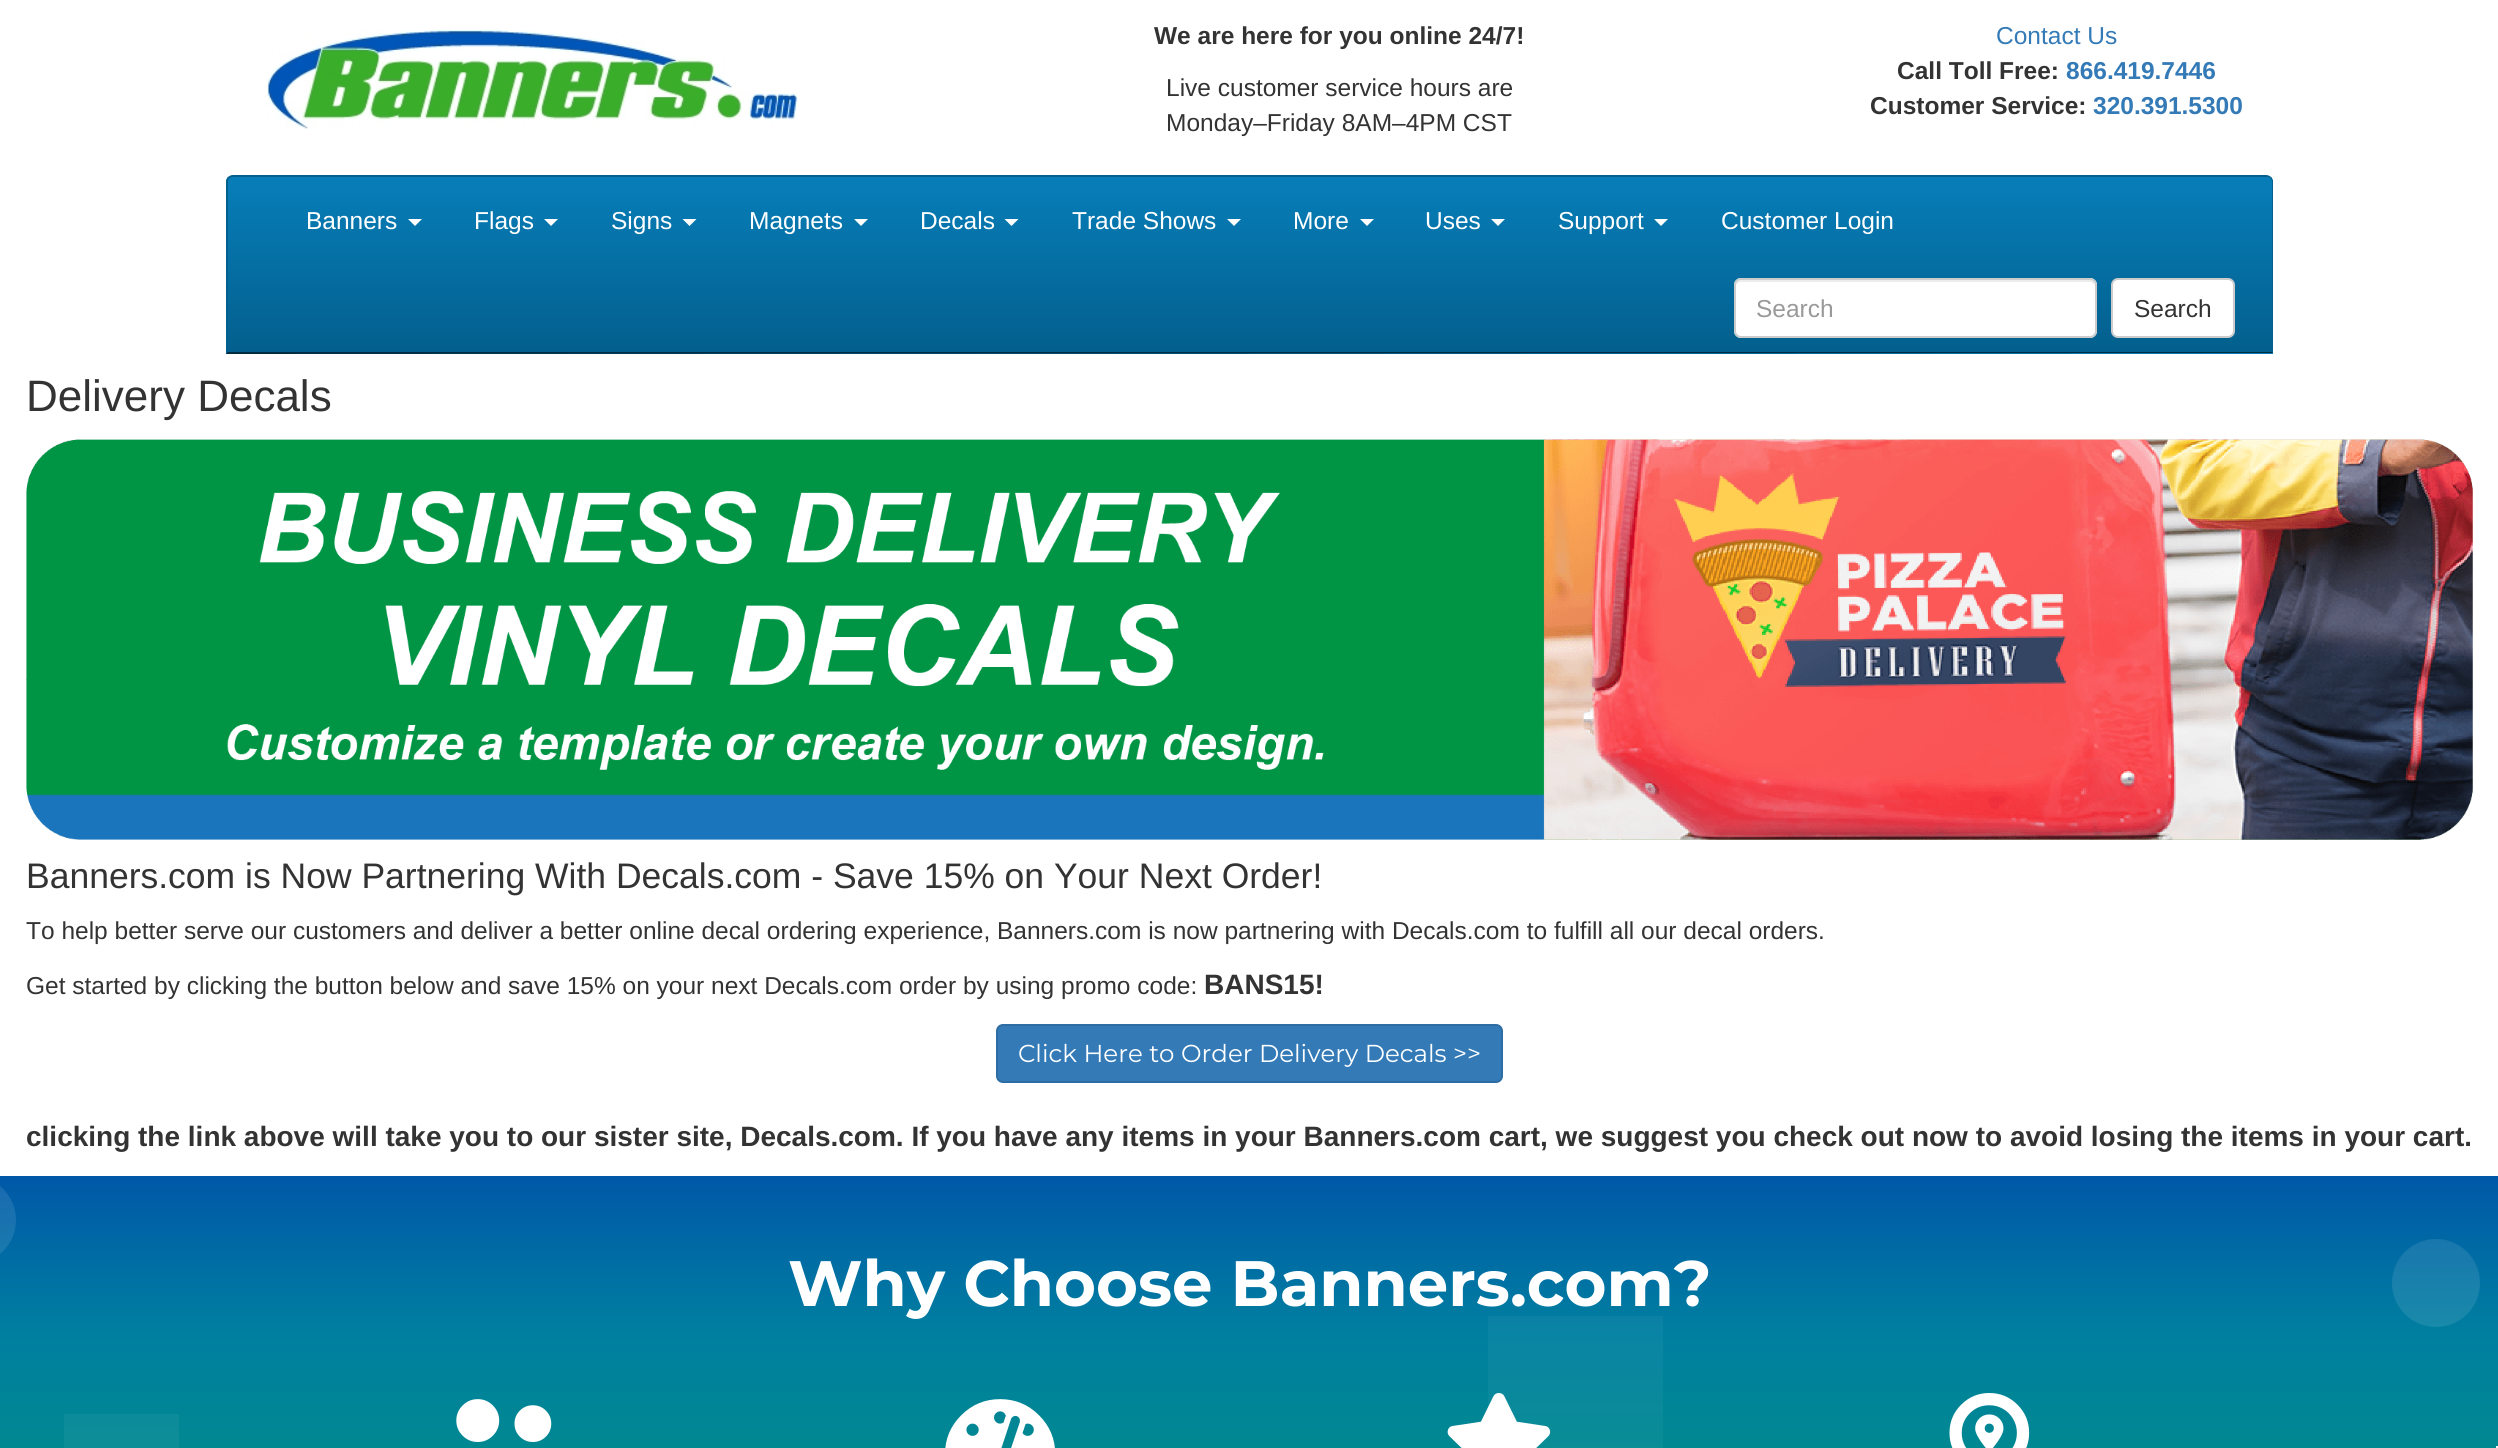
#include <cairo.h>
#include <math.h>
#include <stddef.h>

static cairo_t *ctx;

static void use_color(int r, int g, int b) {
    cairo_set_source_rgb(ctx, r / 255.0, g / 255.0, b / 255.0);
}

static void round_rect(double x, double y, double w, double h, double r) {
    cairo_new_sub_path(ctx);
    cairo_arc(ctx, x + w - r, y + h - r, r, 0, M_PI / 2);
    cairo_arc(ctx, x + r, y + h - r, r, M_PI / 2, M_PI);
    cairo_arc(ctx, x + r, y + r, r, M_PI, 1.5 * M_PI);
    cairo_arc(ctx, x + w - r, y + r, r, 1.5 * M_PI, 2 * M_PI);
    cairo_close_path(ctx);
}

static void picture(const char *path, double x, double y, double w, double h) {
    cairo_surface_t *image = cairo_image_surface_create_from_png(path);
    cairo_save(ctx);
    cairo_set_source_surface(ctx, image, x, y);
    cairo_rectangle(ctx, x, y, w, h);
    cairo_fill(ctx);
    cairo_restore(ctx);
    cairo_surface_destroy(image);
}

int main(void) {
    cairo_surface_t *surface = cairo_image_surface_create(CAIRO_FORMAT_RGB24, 2498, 1448);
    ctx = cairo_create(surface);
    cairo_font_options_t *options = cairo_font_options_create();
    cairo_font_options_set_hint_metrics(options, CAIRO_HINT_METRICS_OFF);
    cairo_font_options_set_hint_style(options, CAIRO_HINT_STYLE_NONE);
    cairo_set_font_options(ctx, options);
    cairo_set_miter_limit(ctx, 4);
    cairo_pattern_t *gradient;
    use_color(255, 255, 255);
    cairo_paint(ctx);
    picture("img1.png", 267, 30, 531, 99);
    cairo_select_font_face(ctx, "Liberation Sans", CAIRO_FONT_SLANT_NORMAL, CAIRO_FONT_WEIGHT_BOLD);
    cairo_set_font_size(ctx, 24.5);
    use_color(51, 51, 51);
    cairo_move_to(ctx, 1154, 44);
    cairo_show_text(ctx, "We are here for you online 24/7!");
    cairo_select_font_face(ctx, "Liberation Sans", CAIRO_FONT_SLANT_NORMAL, CAIRO_FONT_WEIGHT_NORMAL);
    cairo_move_to(ctx, 1166, 96);
    cairo_show_text(ctx, "Live customer service hours are");
    cairo_move_to(ctx, 1166, 131);
    cairo_show_text(ctx, "Monday–Friday 8AM–4PM CST");
    use_color(51, 122, 183);
    cairo_move_to(ctx, 1996, 44);
    cairo_show_text(ctx, "Contact Us");
    cairo_select_font_face(ctx, "Liberation Sans", CAIRO_FONT_SLANT_NORMAL, CAIRO_FONT_WEIGHT_BOLD);
    use_color(51, 51, 51);
    cairo_move_to(ctx, 1897, 79);
    cairo_show_text(ctx, "Call Toll Free:");
    use_color(51, 122, 183);
    cairo_move_to(ctx, 2066, 79);
    cairo_show_text(ctx, "866.419.7446");
    use_color(51, 51, 51);
    cairo_move_to(ctx, 1870, 114);
    cairo_show_text(ctx, "Customer Service:");
    use_color(51, 122, 183);
    cairo_move_to(ctx, 2093, 114);
    cairo_show_text(ctx, "320.391.5300");
    cairo_save(ctx);
    cairo_new_path(ctx);
    cairo_move_to(ctx, 233, 175);
    cairo_line_to(ctx, 2266, 175);
    cairo_curve_to(ctx, 2270, 175, 2273, 178, 2273, 182);
    cairo_line_to(ctx, 2273, 354);
    cairo_line_to(ctx, 226, 354);
    cairo_line_to(ctx, 226, 182);
    cairo_curve_to(ctx, 226, 178, 229, 175, 233, 175);
    cairo_close_path(ctx);
    cairo_clip(ctx);
    gradient = cairo_pattern_create_linear(1250, 177, 1250, 352);
    cairo_pattern_add_color_stop_rgba(gradient, 0, 0.027, 0.494, 0.725, 1);
    cairo_pattern_add_color_stop_rgba(gradient, 1, 0.012, 0.373, 0.553, 1);
    cairo_set_source(ctx, gradient);
    cairo_pattern_destroy(gradient);
    cairo_rectangle(ctx, 226, 177, 2047, 175);
    cairo_fill(ctx);
    cairo_restore(ctx);
    gradient = cairo_pattern_create_linear(1250, 352, 1250, 527);
    cairo_pattern_add_color_stop_rgba(gradient, 0, 0.027, 0.494, 0.725, 1);
    cairo_pattern_add_color_stop_rgba(gradient, 1, 0.012, 0.373, 0.553, 1);
    cairo_set_source(ctx, gradient);
    cairo_pattern_destroy(gradient);
    cairo_rectangle(ctx, 226, 352, 2047, 2);
    cairo_fill(ctx);
    use_color(3, 95, 141);
    cairo_new_path(ctx);
    cairo_move_to(ctx, 233, 175);
    cairo_curve_to(ctx, 231, 175, 229, 176, 228, 177);
    cairo_line_to(ctx, 229, 179);
    cairo_curve_to(ctx, 230, 178, 231, 177, 233, 177);
    cairo_line_to(ctx, 2266, 177);
    cairo_curve_to(ctx, 2267, 177, 2269, 177, 2270, 178);
    cairo_line_to(ctx, 2271, 177);
    cairo_curve_to(ctx, 2270, 176, 2268, 175, 2266, 175);
    cairo_close_path(ctx);
    cairo_fill(ctx);
    cairo_new_path(ctx);
    cairo_move_to(ctx, 2271, 177);
    cairo_curve_to(ctx, 2272, 178, 2273, 180, 2273, 182);
    cairo_line_to(ctx, 2273, 353);
    cairo_line_to(ctx, 2272, 352);
    cairo_line_to(ctx, 2272, 182);
    cairo_curve_to(ctx, 2272, 180, 2271, 179, 2270, 178);
    cairo_close_path(ctx);
    cairo_fill(ctx);
    use_color(1, 44, 66);
    cairo_new_path(ctx);
    cairo_move_to(ctx, 226, 354);
    cairo_line_to(ctx, 228, 351);
    cairo_line_to(ctx, 228, 352);
    cairo_line_to(ctx, 2272, 352);
    cairo_line_to(ctx, 2273, 353);
    cairo_close_path(ctx);
    cairo_fill(ctx);
    use_color(3, 95, 141);
    cairo_new_path(ctx);
    cairo_move_to(ctx, 228, 177);
    cairo_curve_to(ctx, 227, 178, 226, 180, 226, 182);
    cairo_line_to(ctx, 226, 353);
    cairo_line_to(ctx, 228, 351);
    cairo_line_to(ctx, 228, 181);
    cairo_line_to(ctx, 229, 179);
    cairo_close_path(ctx);
    cairo_fill(ctx);
    cairo_select_font_face(ctx, "Liberation Sans", CAIRO_FONT_SLANT_NORMAL, CAIRO_FONT_WEIGHT_NORMAL);
    use_color(255, 255, 255);
    cairo_move_to(ctx, 306, 229);
    cairo_show_text(ctx, "Banners");
    cairo_new_path(ctx);
    cairo_move_to(ctx, 408, 219);
    cairo_line_to(ctx, 422, 219);
    cairo_line_to(ctx, 415, 226);
    cairo_close_path(ctx);
    cairo_fill(ctx);
    cairo_move_to(ctx, 474, 229);
    cairo_show_text(ctx, "Flags");
    cairo_new_path(ctx);
    cairo_move_to(ctx, 544, 219);
    cairo_line_to(ctx, 558, 219);
    cairo_line_to(ctx, 551, 226);
    cairo_close_path(ctx);
    cairo_fill(ctx);
    cairo_move_to(ctx, 611, 229);
    cairo_show_text(ctx, "Signs");
    cairo_new_path(ctx);
    cairo_move_to(ctx, 682.5, 219);
    cairo_line_to(ctx, 696.5, 219);
    cairo_line_to(ctx, 689.5, 226);
    cairo_close_path(ctx);
    cairo_fill(ctx);
    cairo_move_to(ctx, 749, 229);
    cairo_show_text(ctx, "Magnets");
    cairo_new_path(ctx);
    cairo_move_to(ctx, 854, 219);
    cairo_line_to(ctx, 868, 219);
    cairo_line_to(ctx, 861, 226);
    cairo_close_path(ctx);
    cairo_fill(ctx);
    cairo_move_to(ctx, 920, 229);
    cairo_show_text(ctx, "Decals");
    cairo_new_path(ctx);
    cairo_move_to(ctx, 1004.5, 219);
    cairo_line_to(ctx, 1018.5, 219);
    cairo_line_to(ctx, 1011.5, 226);
    cairo_close_path(ctx);
    cairo_fill(ctx);
    cairo_move_to(ctx, 1072, 229);
    cairo_show_text(ctx, "Trade Shows");
    cairo_new_path(ctx);
    cairo_move_to(ctx, 1227, 219);
    cairo_line_to(ctx, 1241, 219);
    cairo_line_to(ctx, 1234, 226);
    cairo_close_path(ctx);
    cairo_fill(ctx);
    cairo_move_to(ctx, 1293, 229);
    cairo_show_text(ctx, "More");
    cairo_new_path(ctx);
    cairo_move_to(ctx, 1360, 219);
    cairo_line_to(ctx, 1374, 219);
    cairo_line_to(ctx, 1367, 226);
    cairo_close_path(ctx);
    cairo_fill(ctx);
    cairo_move_to(ctx, 1425, 229);
    cairo_show_text(ctx, "Uses");
    cairo_new_path(ctx);
    cairo_move_to(ctx, 1491, 219);
    cairo_line_to(ctx, 1505, 219);
    cairo_line_to(ctx, 1498, 226);
    cairo_close_path(ctx);
    cairo_fill(ctx);
    cairo_move_to(ctx, 1558, 229);
    cairo_show_text(ctx, "Support");
    cairo_new_path(ctx);
    cairo_move_to(ctx, 1654, 219);
    cairo_line_to(ctx, 1668, 219);
    cairo_line_to(ctx, 1661, 226);
    cairo_close_path(ctx);
    cairo_fill(ctx);
    cairo_move_to(ctx, 1721, 229);
    cairo_show_text(ctx, "Customer Login");
    round_rect(1734, 278, 363, 60, 7);
    cairo_fill(ctx);
    use_color(236, 236, 236);
    cairo_new_path(ctx);
    cairo_move_to(ctx, 1741, 282);
    cairo_line_to(ctx, 2090, 282);
    cairo_curve_to(ctx, 2092, 282, 2095, 284, 2095, 287);
    cairo_curve_to(ctx, 2095, 284, 2094, 280, 2090, 280);
    cairo_line_to(ctx, 1741, 280);
    cairo_curve_to(ctx, 1737, 280, 1736, 284, 1736, 287);
    cairo_curve_to(ctx, 1736, 284, 1738, 282, 1741, 282);
    cairo_close_path(ctx);
    cairo_fill(ctx);
    round_rect(1735, 279, 361, 58, 6);
    use_color(204, 204, 204);
    cairo_stroke(ctx);
    use_color(153, 153, 153);
    cairo_move_to(ctx, 1756, 317);
    cairo_show_text(ctx, "Search");
    use_color(255, 255, 255);
    round_rect(2112, 279, 122, 58, 6);
    cairo_fill_preserve(ctx);
    use_color(204, 204, 204);
    cairo_stroke(ctx);
    use_color(51, 51, 51);
    cairo_move_to(ctx, 2134, 317);
    cairo_show_text(ctx, "Search");
    cairo_set_font_size(ctx, 44);
    cairo_move_to(ctx, 26, 411);
    cairo_show_text(ctx, "Delivery Decals");
    picture("img2.png", 26, 439, 2447, 401);
    cairo_set_font_size(ctx, 35.5);
    cairo_move_to(ctx, 26, 888);
    cairo_show_text(ctx, "Banners.com is Now Partnering With Decals.com - Save 15% on Your Next Order!");
    cairo_set_font_size(ctx, 24.5);
    cairo_move_to(ctx, 26, 939);
    cairo_show_text(ctx, "To help better serve our customers and deliver a better online decal ordering experience, Banners.com is now partnering with Decals.com to fulfill all our decal orders.");
    cairo_move_to(ctx, 26, 994);
    cairo_show_text(ctx, "Get started by clicking the button below and save 15% on your next Decals.com order by using promo code:");
    cairo_select_font_face(ctx, "Liberation Sans", CAIRO_FONT_SLANT_NORMAL, CAIRO_FONT_WEIGHT_BOLD);
    cairo_set_font_size(ctx, 28);
    cairo_move_to(ctx, 1204, 994);
    cairo_show_text(ctx, "BANS15!");
    use_color(51, 122, 183);
    round_rect(997, 1025, 505, 57, 6);
    cairo_fill_preserve(ctx);
    use_color(46, 109, 164);
    cairo_stroke(ctx);
    cairo_select_font_face(ctx, "Montserrat", CAIRO_FONT_SLANT_NORMAL, CAIRO_FONT_WEIGHT_NORMAL);
    cairo_set_font_size(ctx, 24.5);
    use_color(255, 255, 255);
    cairo_move_to(ctx, 1018, 1062);
    cairo_show_text(ctx, "Click Here to Order Delivery Decals >>");
    cairo_select_font_face(ctx, "Liberation Sans", CAIRO_FONT_SLANT_NORMAL, CAIRO_FONT_WEIGHT_BOLD);
    cairo_set_font_size(ctx, 28);
    use_color(51, 51, 51);
    cairo_move_to(ctx, 26, 1146);
    cairo_show_text(ctx, "clicking the link above will take you to our sister site, Decals.com. If you have any items in your Banners.com cart, we suggest you check out now to avoid losing the items in your cart.");
    gradient = cairo_pattern_create_linear(1250, 1176, 1250, 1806);
    cairo_pattern_add_color_stop_rgba(gradient, 0, 0, 0.345, 0.659, 1);
    cairo_pattern_add_color_stop_rgba(gradient, 0.25, 0, 0.498, 0.627, 1);
    cairo_pattern_add_color_stop_rgba(gradient, 0.9, 0, 0.624, 0.42, 1);
    cairo_set_source(ctx, gradient);
    cairo_pattern_destroy(gradient);
    cairo_rectangle(ctx, 0, 1176, 2498, 272);
    cairo_fill(ctx);
    cairo_set_source_rgba(ctx, 1, 1, 1, 0.1);
    round_rect(-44, 1176, 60, 88, 44);
    cairo_fill(ctx);
    cairo_arc(ctx, 2436, 1283, 44, 0, 2 * M_PI);
    cairo_fill(ctx);
    cairo_set_source_rgba(ctx, 1, 1, 1, 0.05);
    cairo_rectangle(ctx, 64, 1414, 115, 34);
    cairo_fill(ctx);
    picture("img5.png", 1447, 1393, 104, 55);
    cairo_set_source_rgba(ctx, 1, 1, 1, 0.04);
    cairo_rectangle(ctx, 1488, 1316, 175, 132);
    cairo_fill(ctx);
    cairo_select_font_face(ctx, "Montserrat", CAIRO_FONT_SLANT_NORMAL, CAIRO_FONT_WEIGHT_BOLD);
    cairo_set_font_size(ctx, 64.1);
    use_color(255, 255, 255);
    cairo_move_to(ctx, 788, 1306);
    cairo_show_text(ctx, "Why Choose Banners.com?");
    picture("img3.png", 456, 1399, 96, 43);
    picture("img4.png", 945, 1399, 110, 49);
    picture("img6.png", 1949, 1393, 81, 55);
    use_color(245, 245, 245);
    cairo_rectangle(ctx, 2496, 1446, 2, 2);
    cairo_fill(ctx);
    cairo_surface_write_to_png(surface, "result.png");
    cairo_font_options_destroy(options);
    cairo_destroy(ctx);
    cairo_surface_destroy(surface);
    return 0;
}
